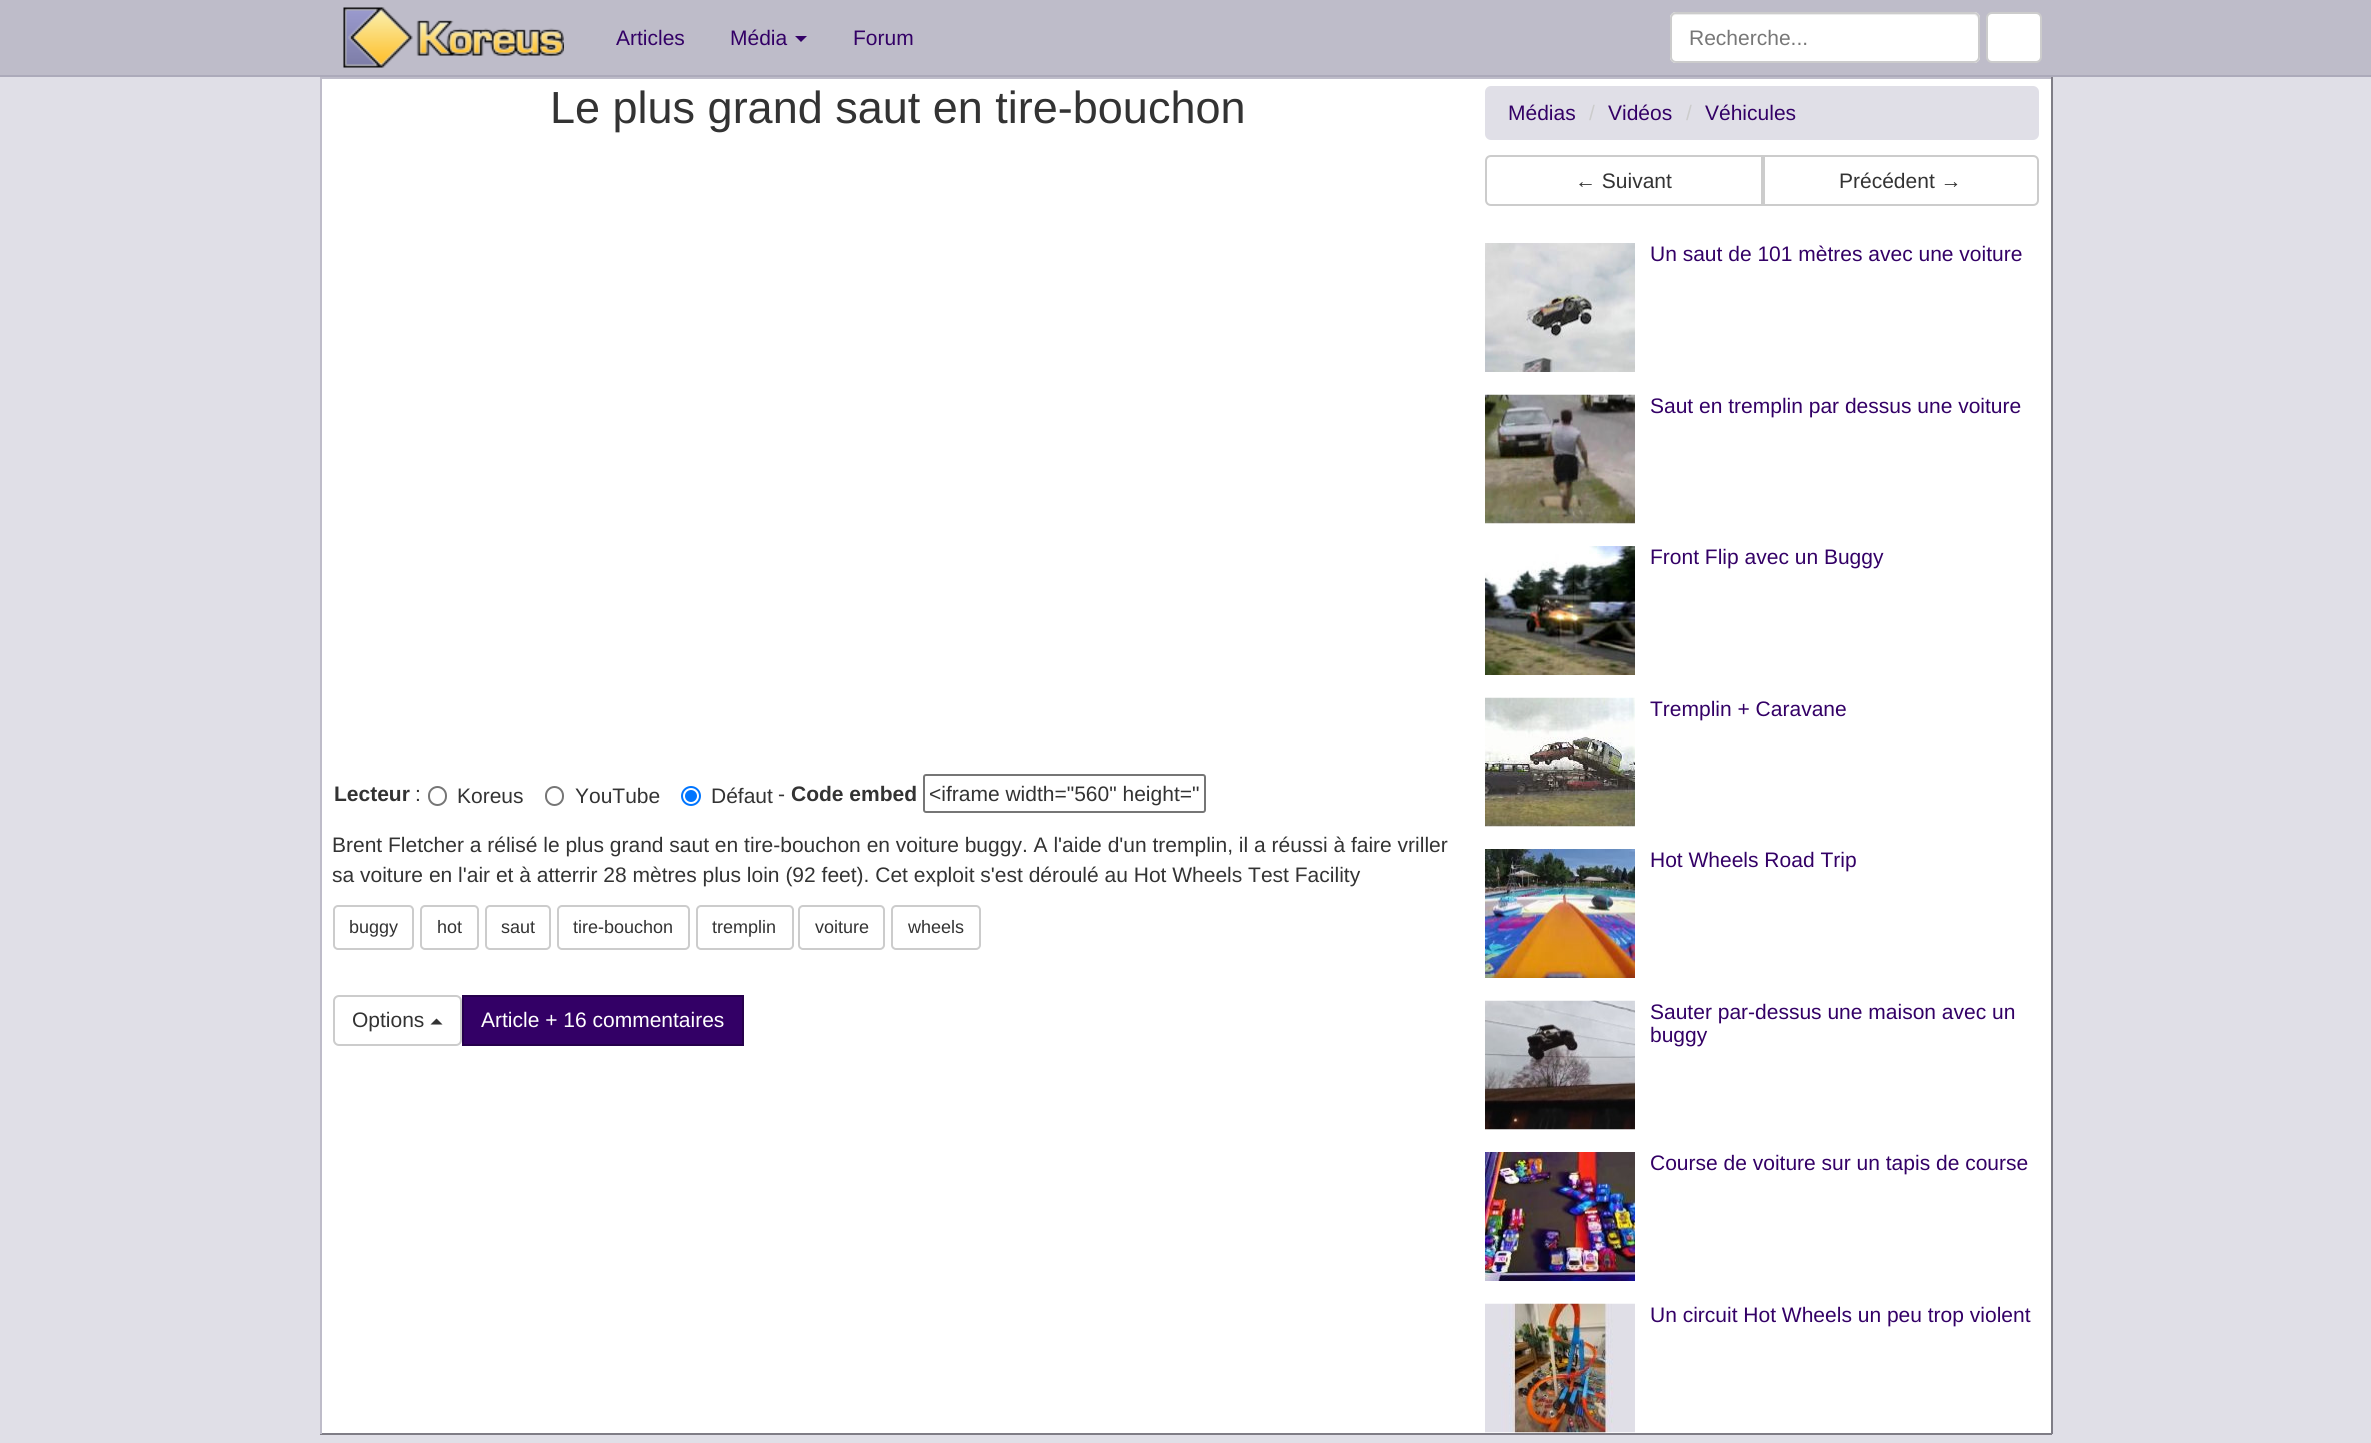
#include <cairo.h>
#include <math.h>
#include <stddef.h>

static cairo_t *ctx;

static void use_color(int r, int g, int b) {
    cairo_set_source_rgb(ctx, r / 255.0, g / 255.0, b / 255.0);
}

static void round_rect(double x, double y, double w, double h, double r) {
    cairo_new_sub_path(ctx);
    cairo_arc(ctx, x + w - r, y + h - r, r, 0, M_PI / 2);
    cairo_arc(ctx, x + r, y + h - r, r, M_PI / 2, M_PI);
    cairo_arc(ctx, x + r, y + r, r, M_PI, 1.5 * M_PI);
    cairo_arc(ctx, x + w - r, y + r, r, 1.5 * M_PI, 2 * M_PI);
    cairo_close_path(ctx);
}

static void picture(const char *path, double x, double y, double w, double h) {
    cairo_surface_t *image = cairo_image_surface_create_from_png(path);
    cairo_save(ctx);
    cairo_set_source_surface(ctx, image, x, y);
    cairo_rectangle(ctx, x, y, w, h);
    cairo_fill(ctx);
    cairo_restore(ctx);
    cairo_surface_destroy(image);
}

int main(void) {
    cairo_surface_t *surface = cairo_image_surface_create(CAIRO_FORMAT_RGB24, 2371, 1443);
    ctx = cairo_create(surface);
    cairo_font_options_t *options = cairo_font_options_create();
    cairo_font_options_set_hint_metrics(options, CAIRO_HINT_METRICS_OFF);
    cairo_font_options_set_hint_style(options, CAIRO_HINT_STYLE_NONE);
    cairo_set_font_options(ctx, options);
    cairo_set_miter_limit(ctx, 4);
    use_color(224, 223, 231);
    cairo_paint(ctx);
    use_color(190, 188, 201);
    cairo_rectangle(ctx, 0, 0, 2371, 75);
    cairo_fill(ctx);
    use_color(172, 170, 186);
    cairo_rectangle(ctx, 0, 75, 2371, 2);
    cairo_fill(ctx);
    picture("img1.png", 343, 7, 221, 61);
    cairo_select_font_face(ctx, "Liberation Sans", CAIRO_FONT_SLANT_NORMAL, CAIRO_FONT_WEIGHT_NORMAL);
    cairo_set_font_size(ctx, 21);
    use_color(51, 0, 102);
    cairo_move_to(ctx, 616, 45);
    cairo_show_text(ctx, "Articles");
    cairo_move_to(ctx, 730, 45);
    cairo_show_text(ctx, "Média");
    cairo_new_path(ctx);
    cairo_move_to(ctx, 795, 36);
    cairo_line_to(ctx, 807, 36);
    cairo_line_to(ctx, 801, 42);
    cairo_close_path(ctx);
    cairo_fill(ctx);
    cairo_move_to(ctx, 853, 45);
    cairo_show_text(ctx, "Forum");
    use_color(255, 255, 255);
    round_rect(1670, 12, 310, 51, 6);
    cairo_fill(ctx);
    use_color(236, 236, 236);
    cairo_new_path(ctx);
    cairo_move_to(ctx, 1676, 15);
    cairo_line_to(ctx, 1974, 15);
    cairo_curve_to(ctx, 1976, 15, 1978, 17, 1978, 20);
    cairo_line_to(ctx, 1978, 58);
    cairo_line_to(ctx, 1977, 61);
    cairo_curve_to(ctx, 1978, 60, 1979, 58, 1979, 57);
    cairo_line_to(ctx, 1979, 19);
    cairo_curve_to(ctx, 1979, 16, 1977, 14, 1974, 14);
    cairo_line_to(ctx, 1676, 14);
    cairo_curve_to(ctx, 1673, 14, 1671, 16, 1671, 19);
    cairo_line_to(ctx, 1671, 20);
    cairo_curve_to(ctx, 1671, 17, 1673, 15, 1676, 15);
    cairo_close_path(ctx);
    cairo_fill(ctx);
    round_rect(1671, 13, 308, 49, 5);
    use_color(204, 204, 204);
    cairo_stroke(ctx);
    use_color(119, 119, 119);
    cairo_move_to(ctx, 1689, 45);
    cairo_show_text(ctx, "Recherche...");
    use_color(255, 255, 255);
    round_rect(1987, 13, 54, 49, 5);
    cairo_fill_preserve(ctx);
    use_color(204, 204, 204);
    cairo_stroke(ctx);
    use_color(255, 255, 255);
    cairo_rectangle(ctx, 322, 79, 1729, 1354);
    cairo_fill(ctx);
    use_color(190, 188, 201);
    cairo_rectangle(ctx, 320, 77, 1732, 2);
    cairo_fill(ctx);
    use_color(127, 125, 134);
    cairo_rectangle(ctx, 2051, 77, 2, 1357);
    cairo_fill(ctx);
    cairo_rectangle(ctx, 320, 1433, 1732, 2);
    cairo_fill(ctx);
    use_color(190, 188, 201);
    cairo_rectangle(ctx, 320, 77, 2, 1357);
    cairo_fill(ctx);
    cairo_set_font_size(ctx, 45);
    use_color(51, 51, 51);
    cairo_move_to(ctx, 550, 123);
    cairo_show_text(ctx, "Le plus grand saut en tire-bouchon");
    cairo_select_font_face(ctx, "Liberation Sans", CAIRO_FONT_SLANT_NORMAL, CAIRO_FONT_WEIGHT_BOLD);
    cairo_set_font_size(ctx, 21);
    cairo_move_to(ctx, 334, 801);
    cairo_show_text(ctx, "Lecteur");
    cairo_select_font_face(ctx, "Liberation Sans", CAIRO_FONT_SLANT_NORMAL, CAIRO_FONT_WEIGHT_NORMAL);
    cairo_move_to(ctx, 415, 801);
    cairo_show_text(ctx, ":");
    round_rect(429, 787, 17, 18, 8.5);
    use_color(118, 118, 118);
    cairo_stroke(ctx);
    use_color(51, 51, 51);
    cairo_move_to(ctx, 457, 803);
    cairo_show_text(ctx, "Koreus");
    round_rect(546, 787, 17, 18, 8.5);
    use_color(118, 118, 118);
    cairo_stroke(ctx);
    use_color(51, 51, 51);
    cairo_move_to(ctx, 575, 803);
    cairo_show_text(ctx, "YouTube");
    cairo_new_path(ctx);
    cairo_arc(ctx, 691, 796, 9, 0, 2 * M_PI);
    use_color(0, 117, 255);
    cairo_stroke(ctx);
    cairo_arc(ctx, 691, 796, 6, 0, 2 * M_PI);
    cairo_fill(ctx);
    use_color(51, 51, 51);
    cairo_move_to(ctx, 711, 803);
    cairo_show_text(ctx, "Défaut");
    cairo_move_to(ctx, 778, 801);
    cairo_show_text(ctx, "-");
    cairo_select_font_face(ctx, "Liberation Sans", CAIRO_FONT_SLANT_NORMAL, CAIRO_FONT_WEIGHT_BOLD);
    cairo_move_to(ctx, 791, 801);
    cairo_show_text(ctx, "Code embed");
    round_rect(924, 775, 281, 37, 2);
    use_color(118, 118, 118);
    cairo_stroke(ctx);
    cairo_select_font_face(ctx, "Liberation Sans", CAIRO_FONT_SLANT_NORMAL, CAIRO_FONT_WEIGHT_NORMAL);
    use_color(51, 51, 51);
    cairo_move_to(ctx, 929, 801);
    cairo_show_text(ctx, "<iframe width=\"560\" height=\"");
    cairo_move_to(ctx, 332, 852);
    cairo_show_text(ctx, "Brent Fletcher a rélisé le plus grand saut en tire-bouchon en voiture buggy. A l'aide d'un tremplin, il a réussi à faire vriller");
    cairo_move_to(ctx, 332, 882);
    cairo_show_text(ctx, "sa voiture en l'air et à atterrir 28 mètres plus loin (92 feet). Cet exploit s'est déroulé au Hot Wheels Test Facility");
    round_rect(334, 906, 79, 43, 4);
    use_color(204, 204, 204);
    cairo_stroke(ctx);
    cairo_set_font_size(ctx, 18);
    use_color(51, 51, 51);
    cairo_move_to(ctx, 349, 933);
    cairo_show_text(ctx, "buggy");
    round_rect(421, 906, 57, 43, 4);
    use_color(204, 204, 204);
    cairo_stroke(ctx);
    use_color(51, 51, 51);
    cairo_move_to(ctx, 437, 933);
    cairo_show_text(ctx, "hot");
    round_rect(486, 906, 64, 43, 4);
    use_color(204, 204, 204);
    cairo_stroke(ctx);
    use_color(51, 51, 51);
    cairo_move_to(ctx, 501, 933);
    cairo_show_text(ctx, "saut");
    round_rect(558, 906, 131, 43, 4);
    use_color(204, 204, 204);
    cairo_stroke(ctx);
    use_color(51, 51, 51);
    cairo_move_to(ctx, 573, 933);
    cairo_show_text(ctx, "tire-bouchon");
    round_rect(697, 906, 96, 43, 4);
    use_color(204, 204, 204);
    cairo_stroke(ctx);
    use_color(51, 51, 51);
    cairo_move_to(ctx, 712, 933);
    cairo_show_text(ctx, "tremplin");
    round_rect(799, 906, 85, 43, 4);
    use_color(204, 204, 204);
    cairo_stroke(ctx);
    use_color(51, 51, 51);
    cairo_move_to(ctx, 815, 933);
    cairo_show_text(ctx, "voiture");
    round_rect(892, 906, 88, 43, 4);
    use_color(204, 204, 204);
    cairo_stroke(ctx);
    use_color(51, 51, 51);
    cairo_move_to(ctx, 908, 933);
    cairo_show_text(ctx, "wheels");
    round_rect(334, 996, 127, 49, 5);
    use_color(204, 204, 204);
    cairo_stroke(ctx);
    cairo_set_font_size(ctx, 21);
    use_color(51, 51, 51);
    cairo_move_to(ctx, 352, 1027);
    cairo_show_text(ctx, "Options");
    cairo_new_path(ctx);
    cairo_move_to(ctx, 442.5, 1024.5);
    cairo_line_to(ctx, 430.5, 1024.5);
    cairo_line_to(ctx, 436.5, 1018.5);
    cairo_close_path(ctx);
    cairo_fill(ctx);
    use_color(51, 0, 102);
    cairo_rectangle(ctx, 463, 996, 280, 49);
    cairo_fill_preserve(ctx);
    use_color(38, 0, 77);
    cairo_stroke(ctx);
    use_color(255, 255, 255);
    cairo_move_to(ctx, 481, 1027);
    cairo_show_text(ctx, "Article + 16 commentaires");
    use_color(224, 223, 231);
    round_rect(1485, 86, 554, 54, 6);
    cairo_fill(ctx);
    use_color(51, 0, 102);
    cairo_move_to(ctx, 1508, 120);
    cairo_show_text(ctx, "Médias");
    use_color(204, 204, 204);
    cairo_move_to(ctx, 1589, 120);
    cairo_show_text(ctx, "/");
    use_color(51, 0, 102);
    cairo_move_to(ctx, 1608, 120);
    cairo_show_text(ctx, "Vidéos");
    use_color(204, 204, 204);
    cairo_move_to(ctx, 1686, 120);
    cairo_show_text(ctx, "/");
    use_color(51, 0, 102);
    cairo_move_to(ctx, 1705, 120);
    cairo_show_text(ctx, "Véhicules");
    cairo_new_path(ctx);
    cairo_move_to(ctx, 1491, 156);
    cairo_line_to(ctx, 1762, 156);
    cairo_line_to(ctx, 1762, 205);
    cairo_line_to(ctx, 1491, 205);
    cairo_curve_to(ctx, 1488, 205, 1486, 203, 1486, 200);
    cairo_line_to(ctx, 1486, 161);
    cairo_curve_to(ctx, 1486, 158, 1488, 156, 1491, 156);
    cairo_close_path(ctx);
    use_color(204, 204, 204);
    cairo_stroke(ctx);
    use_color(51, 51, 51);
    cairo_move_to(ctx, 1575, 188);
    cairo_show_text(ctx, "← Suivant");
    cairo_new_path(ctx);
    cairo_move_to(ctx, 1764, 156);
    cairo_line_to(ctx, 2033, 156);
    cairo_curve_to(ctx, 2036, 156, 2038, 158, 2038, 161);
    cairo_line_to(ctx, 2038, 200);
    cairo_curve_to(ctx, 2038, 203, 2036, 205, 2033, 205);
    cairo_line_to(ctx, 1764, 205);
    cairo_close_path(ctx);
    use_color(204, 204, 204);
    cairo_stroke(ctx);
    use_color(51, 51, 51);
    cairo_move_to(ctx, 1839, 188);
    cairo_show_text(ctx, "Précédent →");
    picture("img2.png", 1485, 243, 150, 129);
    use_color(51, 0, 102);
    cairo_move_to(ctx, 1650, 261);
    cairo_show_text(ctx, "Un saut de 101 mètres avec une voiture");
    picture("img3.png", 1485, 394, 150, 130);
    cairo_move_to(ctx, 1650, 413);
    cairo_show_text(ctx, "Saut en tremplin par dessus une voiture");
    picture("img4.png", 1485, 546, 150, 129);
    cairo_move_to(ctx, 1650, 564);
    cairo_show_text(ctx, "Front Flip avec un Buggy");
    picture("img5.png", 1485, 697, 150, 130);
    cairo_move_to(ctx, 1650, 716);
    cairo_show_text(ctx, "Tremplin + Caravane");
    picture("img6.png", 1485, 849, 150, 129);
    cairo_move_to(ctx, 1650, 867);
    cairo_show_text(ctx, "Hot Wheels Road Trip");
    picture("img7.png", 1485, 1000, 150, 130);
    cairo_move_to(ctx, 1650, 1019);
    cairo_show_text(ctx, "Sauter par-dessus une maison avec un");
    cairo_move_to(ctx, 1650, 1042);
    cairo_show_text(ctx, "buggy");
    picture("img8.png", 1485, 1152, 150, 129);
    cairo_move_to(ctx, 1650, 1170);
    cairo_show_text(ctx, "Course de voiture sur un tapis de course");
    picture("img9.png", 1485, 1303, 150, 130);
    cairo_move_to(ctx, 1650, 1322);
    cairo_show_text(ctx, "Un circuit Hot Wheels un peu trop violent");
    cairo_surface_write_to_png(surface, "result.png");
    cairo_font_options_destroy(options);
    cairo_destroy(ctx);
    cairo_surface_destroy(surface);
    return 0;
}
